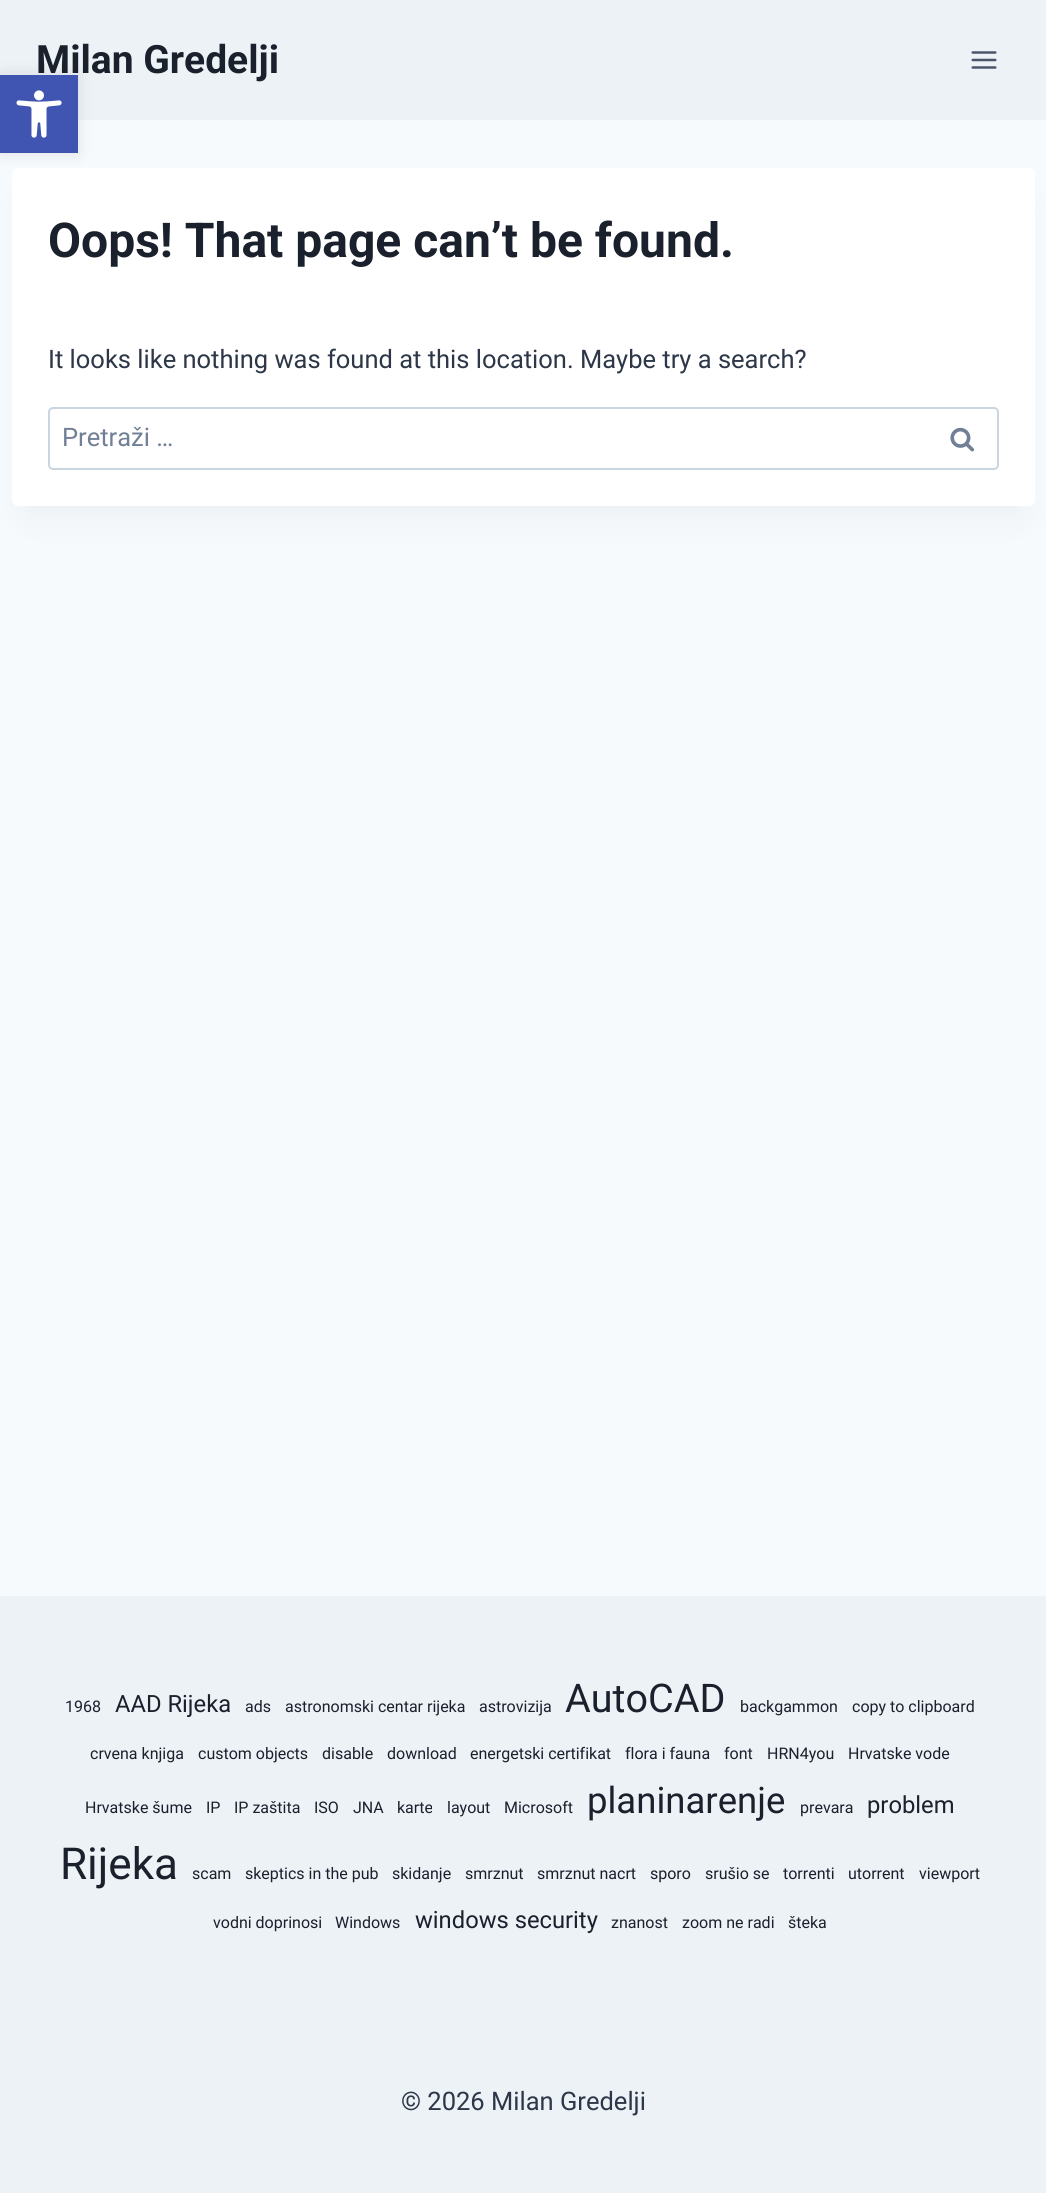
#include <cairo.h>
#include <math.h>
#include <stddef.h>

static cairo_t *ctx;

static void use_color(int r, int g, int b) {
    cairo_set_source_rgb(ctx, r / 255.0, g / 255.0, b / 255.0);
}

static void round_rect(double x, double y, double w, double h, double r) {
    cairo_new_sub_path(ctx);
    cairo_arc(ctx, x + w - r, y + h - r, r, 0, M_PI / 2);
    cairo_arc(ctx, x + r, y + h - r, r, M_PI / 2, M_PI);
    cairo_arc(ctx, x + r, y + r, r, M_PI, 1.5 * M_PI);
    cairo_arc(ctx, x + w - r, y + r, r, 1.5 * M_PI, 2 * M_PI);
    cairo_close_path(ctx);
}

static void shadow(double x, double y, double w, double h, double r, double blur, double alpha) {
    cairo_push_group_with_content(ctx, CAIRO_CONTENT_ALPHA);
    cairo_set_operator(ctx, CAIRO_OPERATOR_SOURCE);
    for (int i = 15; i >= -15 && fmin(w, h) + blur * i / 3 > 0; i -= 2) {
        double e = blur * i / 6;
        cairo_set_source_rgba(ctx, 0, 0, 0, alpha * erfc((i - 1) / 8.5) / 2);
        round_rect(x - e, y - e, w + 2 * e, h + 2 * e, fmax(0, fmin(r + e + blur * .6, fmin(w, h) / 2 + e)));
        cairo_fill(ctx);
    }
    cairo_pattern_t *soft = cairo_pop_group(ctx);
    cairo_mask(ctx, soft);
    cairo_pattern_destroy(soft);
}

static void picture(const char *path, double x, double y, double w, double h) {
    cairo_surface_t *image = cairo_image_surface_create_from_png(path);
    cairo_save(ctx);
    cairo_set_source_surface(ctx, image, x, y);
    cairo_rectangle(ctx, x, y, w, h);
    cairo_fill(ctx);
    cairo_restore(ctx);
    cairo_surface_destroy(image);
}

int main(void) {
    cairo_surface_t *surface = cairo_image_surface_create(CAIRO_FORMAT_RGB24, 1046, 2193);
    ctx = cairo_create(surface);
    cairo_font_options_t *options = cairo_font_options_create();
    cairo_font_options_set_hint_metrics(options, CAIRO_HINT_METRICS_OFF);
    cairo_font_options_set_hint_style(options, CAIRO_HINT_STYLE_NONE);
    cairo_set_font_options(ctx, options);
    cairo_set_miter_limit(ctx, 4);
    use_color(247, 250, 252);
    cairo_paint(ctx);
    use_color(237, 242, 247);
    cairo_rectangle(ctx, 0, 0, 1046, 120);
    cairo_fill(ctx);
    cairo_select_font_face(ctx, "Roboto", CAIRO_FONT_SLANT_NORMAL, CAIRO_FONT_WEIGHT_BOLD);
    cairo_set_font_size(ctx, 39);
    use_color(26, 32, 44);
    cairo_move_to(ctx, 36, 73);
    cairo_show_text(ctx, "Milan Gredelji");
    picture("img1.png", 971, 51, 26, 18);
    use_color(0, 0, 0);
    shadow(27, 206, 993, 307, 0, 19, 0.05);
    use_color(255, 255, 255);
    round_rect(12, 168, 1023, 338, 6);
    cairo_fill(ctx);
    cairo_set_font_size(ctx, 48);
    use_color(26, 32, 44);
    cairo_move_to(ctx, 48, 257);
    cairo_show_text(ctx, "Oops! That page can’t be found.");
    cairo_select_font_face(ctx, "Roboto", CAIRO_FONT_SLANT_NORMAL, CAIRO_FONT_WEIGHT_NORMAL);
    cairo_set_font_size(ctx, 25.5);
    use_color(45, 55, 72);
    cairo_move_to(ctx, 48, 368);
    cairo_show_text(ctx, "It looks like nothing was found at this location. Maybe try a search?");
    round_rect(49, 408, 949, 61, 4);
    use_color(203, 213, 224);
    cairo_stroke(ctx);
    use_color(113, 128, 150);
    cairo_move_to(ctx, 62, 446);
    cairo_show_text(ctx, "Pretraži …");
    picture("img2.png", 950, 427, 25, 25);
    use_color(237, 242, 247);
    cairo_rectangle(ctx, 0, 1596, 1046, 597);
    cairo_fill(ctx);
    cairo_set_font_size(ctx, 16);
    use_color(26, 32, 44);
    cairo_move_to(ctx, 65, 1712);
    cairo_show_text(ctx, "1968");
    cairo_set_font_size(ctx, 23.75);
    cairo_move_to(ctx, 115, 1712);
    cairo_show_text(ctx, "AAD Rijeka");
    cairo_set_font_size(ctx, 16);
    cairo_move_to(ctx, 245, 1712);
    cairo_show_text(ctx, "ads");
    cairo_move_to(ctx, 285, 1712);
    cairo_show_text(ctx, "astronomski centar rijeka");
    cairo_move_to(ctx, 479, 1712);
    cairo_show_text(ctx, "astrovizija");
    cairo_set_font_size(ctx, 39.5);
    cairo_move_to(ctx, 565, 1712);
    cairo_show_text(ctx, "AutoCAD");
    cairo_set_font_size(ctx, 16);
    cairo_move_to(ctx, 740, 1712);
    cairo_show_text(ctx, "backgammon");
    cairo_move_to(ctx, 852, 1712);
    cairo_show_text(ctx, "copy to clipboard");
    cairo_move_to(ctx, 90, 1759);
    cairo_show_text(ctx, "crvena knjiga");
    cairo_move_to(ctx, 198, 1759);
    cairo_show_text(ctx, "custom objects");
    cairo_move_to(ctx, 322, 1759);
    cairo_show_text(ctx, "disable");
    cairo_move_to(ctx, 387, 1759);
    cairo_show_text(ctx, "download");
    cairo_move_to(ctx, 470, 1759);
    cairo_show_text(ctx, "energetski certifikat");
    cairo_move_to(ctx, 625, 1759);
    cairo_show_text(ctx, "flora i fauna");
    cairo_move_to(ctx, 724, 1759);
    cairo_show_text(ctx, "font");
    cairo_move_to(ctx, 767, 1759);
    cairo_show_text(ctx, "HRN4you");
    cairo_move_to(ctx, 848, 1759);
    cairo_show_text(ctx, "Hrvatske vode");
    cairo_move_to(ctx, 85, 1813);
    cairo_show_text(ctx, "Hrvatske šume");
    cairo_move_to(ctx, 206, 1813);
    cairo_show_text(ctx, "IP");
    cairo_move_to(ctx, 234, 1813);
    cairo_show_text(ctx, "IP zaštita");
    cairo_move_to(ctx, 314, 1813);
    cairo_show_text(ctx, "ISO");
    cairo_move_to(ctx, 353, 1813);
    cairo_show_text(ctx, "JNA");
    cairo_move_to(ctx, 397, 1813);
    cairo_show_text(ctx, "karte");
    cairo_move_to(ctx, 447, 1813);
    cairo_show_text(ctx, "layout");
    cairo_move_to(ctx, 504, 1813);
    cairo_show_text(ctx, "Microsoft");
    cairo_set_font_size(ctx, 36.5);
    cairo_move_to(ctx, 587, 1813);
    cairo_show_text(ctx, "planinarenje");
    cairo_set_font_size(ctx, 16);
    cairo_move_to(ctx, 800, 1813);
    cairo_show_text(ctx, "prevara");
    cairo_set_font_size(ctx, 23.75);
    cairo_move_to(ctx, 867, 1813);
    cairo_show_text(ctx, "problem");
    cairo_set_font_size(ctx, 44);
    cairo_move_to(ctx, 60, 1879);
    cairo_show_text(ctx, "Rijeka");
    cairo_set_font_size(ctx, 16);
    cairo_move_to(ctx, 192, 1879);
    cairo_show_text(ctx, "scam");
    cairo_move_to(ctx, 245, 1879);
    cairo_show_text(ctx, "skeptics in the pub");
    cairo_move_to(ctx, 392, 1879);
    cairo_show_text(ctx, "skidanje");
    cairo_move_to(ctx, 465, 1879);
    cairo_show_text(ctx, "smrznut");
    cairo_move_to(ctx, 537, 1879);
    cairo_show_text(ctx, "smrznut nacrt");
    cairo_move_to(ctx, 650, 1879);
    cairo_show_text(ctx, "sporo");
    cairo_move_to(ctx, 705, 1879);
    cairo_show_text(ctx, "srušio se");
    cairo_move_to(ctx, 783, 1879);
    cairo_show_text(ctx, "torrenti");
    cairo_move_to(ctx, 848, 1879);
    cairo_show_text(ctx, "utorrent");
    cairo_move_to(ctx, 919, 1879);
    cairo_show_text(ctx, "viewport");
    cairo_move_to(ctx, 213, 1928);
    cairo_show_text(ctx, "vodni doprinosi");
    cairo_move_to(ctx, 335, 1928);
    cairo_show_text(ctx, "Windows");
    cairo_set_font_size(ctx, 23.75);
    cairo_move_to(ctx, 415, 1928);
    cairo_show_text(ctx, "windows security");
    cairo_set_font_size(ctx, 16);
    cairo_move_to(ctx, 611, 1928);
    cairo_show_text(ctx, "znanost");
    cairo_move_to(ctx, 682, 1928);
    cairo_show_text(ctx, "zoom ne radi");
    cairo_move_to(ctx, 788, 1928);
    cairo_show_text(ctx, "šteka");
    cairo_set_font_size(ctx, 25.5);
    use_color(45, 55, 72);
    cairo_move_to(ctx, 401, 2110);
    cairo_show_text(ctx, "© 2026 Milan Gredelji");
    use_color(0, 0, 0);
    shadow(0, 75, 78, 78, 0, 7.5, 0.1);
    use_color(64, 84, 178);
    cairo_rectangle(ctx, 0, 75, 78, 78);
    cairo_fill(ctx);
    picture("img3.png", 16, 90, 46, 48);
    cairo_surface_write_to_png(surface, "result.png");
    cairo_font_options_destroy(options);
    cairo_destroy(ctx);
    cairo_surface_destroy(surface);
    return 0;
}
